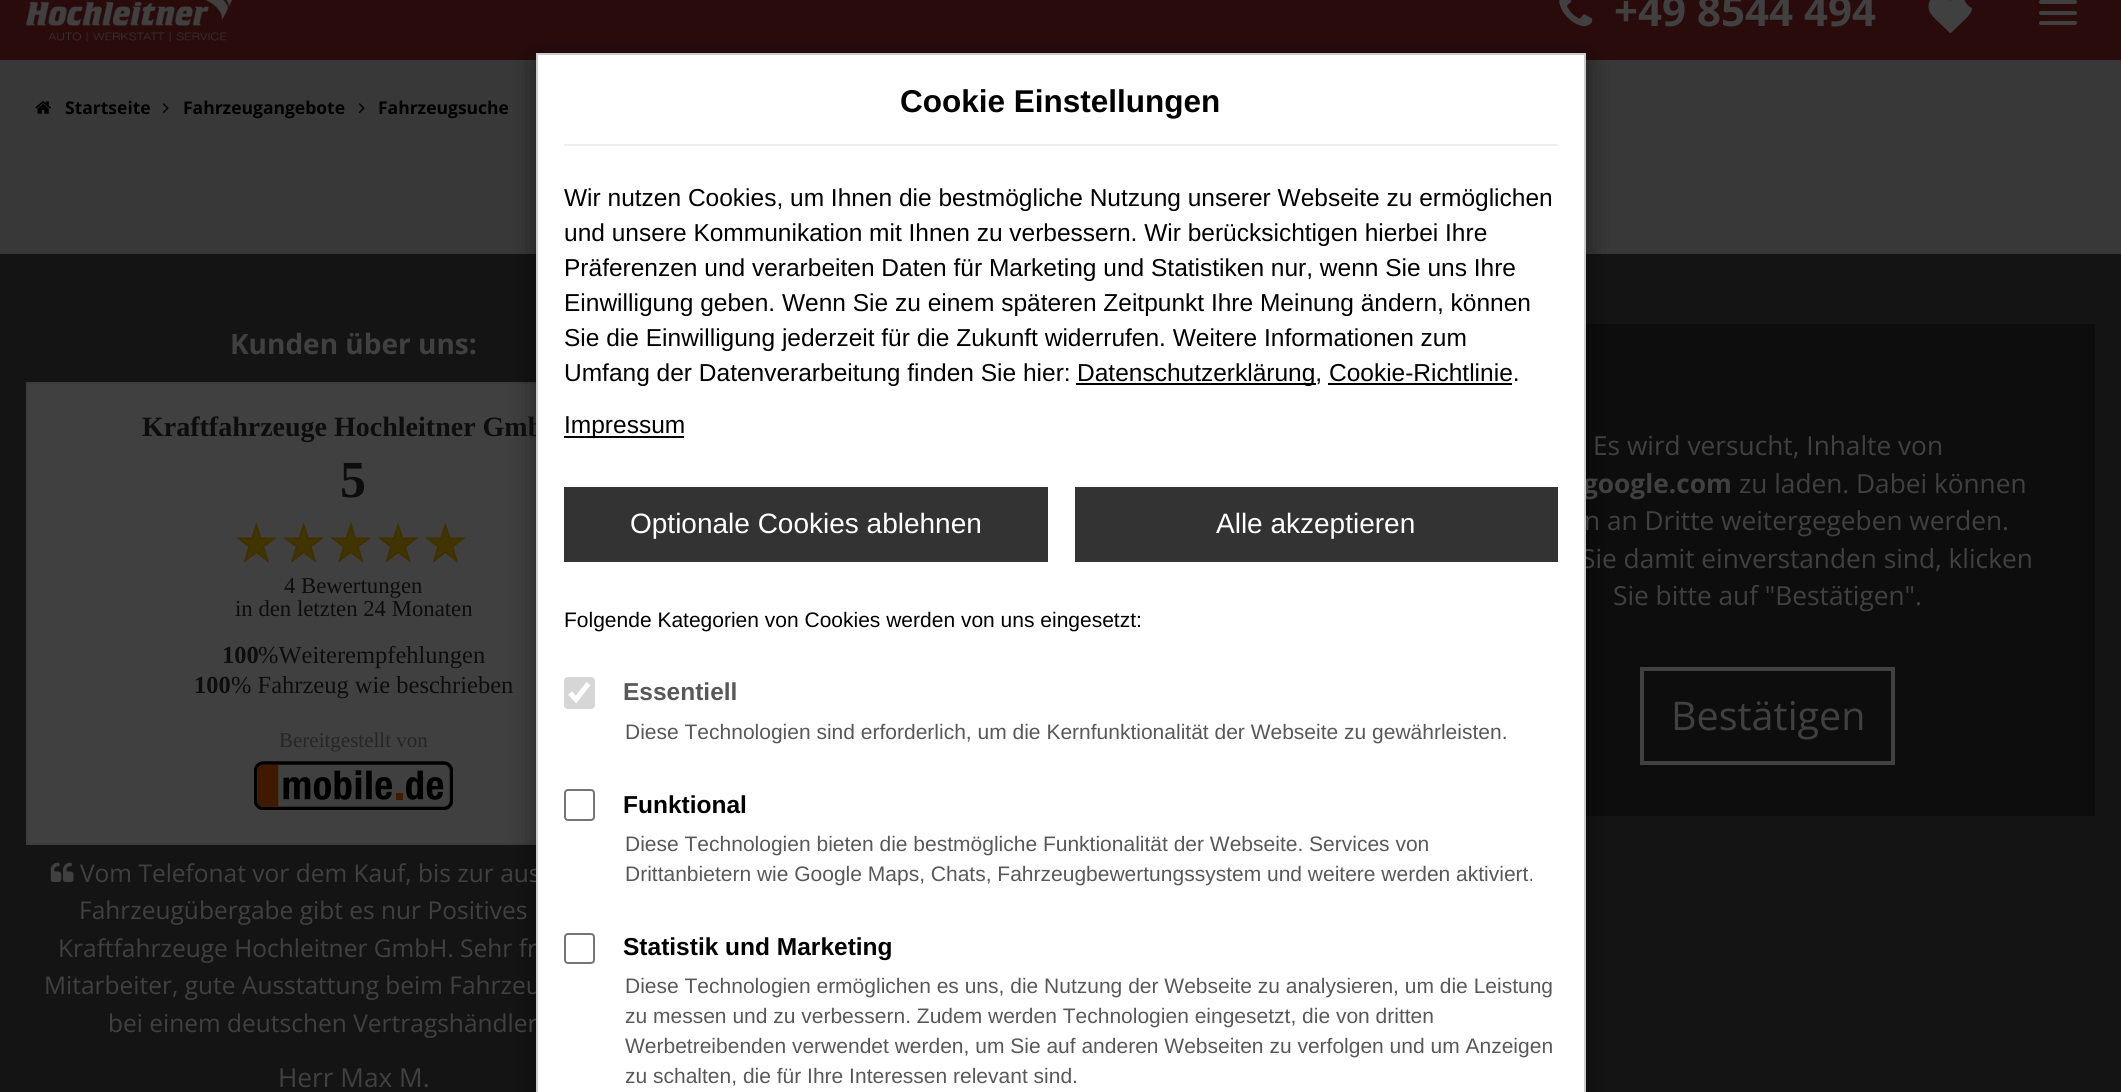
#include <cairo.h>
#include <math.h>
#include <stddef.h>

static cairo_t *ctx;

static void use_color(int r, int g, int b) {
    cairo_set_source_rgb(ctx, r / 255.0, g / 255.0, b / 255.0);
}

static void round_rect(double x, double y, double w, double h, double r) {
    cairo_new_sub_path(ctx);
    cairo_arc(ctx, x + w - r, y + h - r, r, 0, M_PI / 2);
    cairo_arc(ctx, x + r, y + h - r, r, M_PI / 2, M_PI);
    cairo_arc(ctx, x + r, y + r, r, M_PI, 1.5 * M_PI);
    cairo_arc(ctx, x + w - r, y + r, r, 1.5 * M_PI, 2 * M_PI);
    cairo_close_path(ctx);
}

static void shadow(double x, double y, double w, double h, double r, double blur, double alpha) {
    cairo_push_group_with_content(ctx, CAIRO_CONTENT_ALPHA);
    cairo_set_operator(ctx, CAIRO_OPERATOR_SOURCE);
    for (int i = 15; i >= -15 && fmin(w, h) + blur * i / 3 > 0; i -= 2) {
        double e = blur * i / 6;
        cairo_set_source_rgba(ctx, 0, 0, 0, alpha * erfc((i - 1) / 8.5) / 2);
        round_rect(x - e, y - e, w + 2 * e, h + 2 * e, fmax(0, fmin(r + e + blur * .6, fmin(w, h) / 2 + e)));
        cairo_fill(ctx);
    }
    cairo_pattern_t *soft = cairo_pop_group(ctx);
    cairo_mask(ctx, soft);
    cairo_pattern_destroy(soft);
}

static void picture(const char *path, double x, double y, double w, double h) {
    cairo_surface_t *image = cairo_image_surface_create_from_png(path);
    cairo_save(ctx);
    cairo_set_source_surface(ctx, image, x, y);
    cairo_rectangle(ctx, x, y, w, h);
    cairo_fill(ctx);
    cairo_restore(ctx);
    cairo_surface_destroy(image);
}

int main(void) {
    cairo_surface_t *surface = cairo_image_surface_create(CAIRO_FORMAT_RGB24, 2121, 1092);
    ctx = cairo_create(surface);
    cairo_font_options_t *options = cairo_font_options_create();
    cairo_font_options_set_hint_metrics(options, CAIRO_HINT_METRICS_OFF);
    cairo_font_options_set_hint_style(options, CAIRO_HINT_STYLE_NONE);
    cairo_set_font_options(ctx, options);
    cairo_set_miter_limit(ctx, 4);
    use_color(56, 56, 56);
    cairo_paint(ctx);
    use_color(41, 11, 12);
    cairo_rectangle(ctx, 0, 0, 2121, 60);
    cairo_fill(ctx);
    picture("img1.png", 26, 0, 207, 42);
    use_color(64, 64, 64);
    round_rect(2039, 0, 38, 4, 2);
    cairo_fill(ctx);
    round_rect(2039, 11, 38, 4, 2);
    cairo_fill(ctx);
    round_rect(2039, 21, 38, 4, 2);
    cairo_fill(ctx);
    picture("img2.png", 1559, 0, 34, 27);
    cairo_select_font_face(ctx, "Open Sans", CAIRO_FONT_SLANT_NORMAL, CAIRO_FONT_WEIGHT_BOLD);
    cairo_set_font_size(ctx, 42);
    cairo_move_to(ctx, 1614, 26);
    cairo_show_text(ctx, "+49 8544 494");
    picture("img3.png", 1928, 0, 45, 33);
    use_color(41, 11, 12);
    round_rect(1964, -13, 26, 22, 13);
    cairo_fill(ctx);
    picture("img4.png", 35, 101, 16, 13);
    cairo_set_font_size(ctx, 17.5);
    use_color(0, 0, 0);
    cairo_move_to(ctx, 65, 114);
    cairo_show_text(ctx, "Startseite");
    picture("img5.png", 162, 103, 7, 10);
    cairo_move_to(ctx, 183, 114);
    cairo_show_text(ctx, "Fahrzeugangebote");
    picture("img5.png", 358, 103, 7, 10);
    cairo_move_to(ctx, 378, 114);
    cairo_show_text(ctx, "Fahrzeugsuche");
    use_color(20, 20, 20);
    cairo_rectangle(ctx, 0, 254, 2121, 838);
    cairo_fill(ctx);
    use_color(64, 64, 64);
    cairo_rectangle(ctx, 28, 384, 508, 459);
    cairo_fill(ctx);
    cairo_rectangle(ctx, 27, 383, 653, 461);
    use_color(60, 60, 60);
    cairo_stroke(ctx);
    use_color(13, 13, 13);
    cairo_rectangle(ctx, 1586, 324, 509, 492);
    cairo_fill(ctx);
    use_color(0, 0, 0);
    shadow(536, 61, 1050, 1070, 0, 13, 0.5);
    cairo_select_font_face(ctx, "Liberation Serif", CAIRO_FONT_SLANT_NORMAL, CAIRO_FONT_WEIGHT_BOLD);
    cairo_set_font_size(ctx, 28);
    use_color(13, 13, 13);
    cairo_move_to(ctx, 142, 436);
    cairo_show_text(ctx, "Kraftfahrzeuge Hochleitner Gmb");
    cairo_select_font_face(ctx, "Open Sans", CAIRO_FONT_SLANT_NORMAL, CAIRO_FONT_WEIGHT_NORMAL);
    cairo_set_font_size(ctx, 24.5);
    use_color(64, 64, 64);
    cairo_move_to(ctx, 80, 882);
    cairo_show_text(ctx, "Vom Telefonat vor dem Kauf, bis zur aus");
    cairo_move_to(ctx, 58, 957);
    cairo_show_text(ctx, "Kraftfahrzeuge Hochleitner GmbH. Sehr fr");
    cairo_move_to(ctx, 44, 994);
    cairo_show_text(ctx, "Mitarbeiter, gute Ausstattung beim Fahrzeu");
    cairo_move_to(ctx, 108, 1032);
    cairo_show_text(ctx, "bei einem deutschen Vertragshändler");
    cairo_select_font_face(ctx, "Open Sans", CAIRO_FONT_SLANT_NORMAL, CAIRO_FONT_WEIGHT_BOLD);
    cairo_set_font_size(ctx, 26.25);
    cairo_move_to(ctx, 1583, 493);
    cairo_show_text(ctx, "google.com");
    cairo_select_font_face(ctx, "Open Sans", CAIRO_FONT_SLANT_NORMAL, CAIRO_FONT_WEIGHT_NORMAL);
    cairo_move_to(ctx, 1581, 568);
    cairo_show_text(ctx, "Sie damit einverstanden sind, klicken");
    use_color(255, 255, 255);
    cairo_rectangle(ctx, 537, 54, 1048, 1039);
    cairo_fill_preserve(ctx);
    use_color(204, 204, 204);
    cairo_stroke(ctx);
    use_color(238, 238, 238);
    cairo_rectangle(ctx, 564, 144, 994, 2);
    cairo_fill(ctx);
    cairo_select_font_face(ctx, "Liberation Sans", CAIRO_FONT_SLANT_NORMAL, CAIRO_FONT_WEIGHT_BOLD);
    cairo_set_font_size(ctx, 31.5);
    use_color(0, 0, 0);
    cairo_move_to(ctx, 900, 112);
    cairo_show_text(ctx, "Cookie Einstellungen");
    cairo_select_font_face(ctx, "Liberation Sans", CAIRO_FONT_SLANT_NORMAL, CAIRO_FONT_WEIGHT_NORMAL);
    cairo_set_font_size(ctx, 24.5);
    cairo_move_to(ctx, 564, 206);
    cairo_show_text(ctx, "Wir nutzen Cookies, um Ihnen die bestmögliche Nutzung unserer Webseite zu ermöglichen");
    cairo_move_to(ctx, 564, 241);
    cairo_show_text(ctx, "und unsere Kommunikation mit Ihnen zu verbessern. Wir berücksichtigen hierbei Ihre");
    cairo_move_to(ctx, 564, 276);
    cairo_show_text(ctx, "Präferenzen und verarbeiten Daten für Marketing und Statistiken nur, wenn Sie uns Ihre");
    cairo_move_to(ctx, 564, 311);
    cairo_show_text(ctx, "Einwilligung geben. Wenn Sie zu einem späteren Zeitpunkt Ihre Meinung ändern, können");
    cairo_move_to(ctx, 564, 346);
    cairo_show_text(ctx, "Sie die Einwilligung jederzeit für die Zukunft widerrufen. Weitere Informationen zum");
    cairo_move_to(ctx, 564, 381);
    cairo_show_text(ctx, "Umfang der Datenverarbeitung finden Sie hier:");
    cairo_rectangle(ctx, 1076, 383, 240, 2);
    cairo_fill(ctx);
    cairo_move_to(ctx, 1077, 381);
    cairo_show_text(ctx, "Datenschutzerklärung, Cookie-Richtlinie.");
    cairo_rectangle(ctx, 1328, 383, 184, 2);
    cairo_fill(ctx);
    cairo_rectangle(ctx, 564, 436, 120, 2);
    cairo_fill(ctx);
    cairo_move_to(ctx, 564, 433);
    cairo_show_text(ctx, "Impressum");
    use_color(51, 51, 51);
    cairo_rectangle(ctx, 564, 487, 484, 75);
    cairo_fill(ctx);
    cairo_set_font_size(ctx, 28);
    use_color(255, 255, 255);
    cairo_move_to(ctx, 630, 533);
    cairo_show_text(ctx, "Optionale Cookies ablehnen");
    use_color(51, 51, 51);
    cairo_rectangle(ctx, 1075, 487, 483, 75);
    cairo_fill(ctx);
    use_color(255, 255, 255);
    cairo_move_to(ctx, 1216, 533);
    cairo_show_text(ctx, "Alle akzeptieren");
    cairo_set_font_size(ctx, 21);
    use_color(0, 0, 0);
    cairo_move_to(ctx, 564, 627);
    cairo_show_text(ctx, "Folgende Kategorien von Cookies werden von uns eingesetzt:");
    use_color(214, 214, 214);
    round_rect(564, 677, 31, 32, 4);
    cairo_fill(ctx);
    cairo_new_path(ctx);
    cairo_move_to(ctx, 570, 693);
    cairo_line_to(ctx, 576, 699.5);
    cairo_line_to(ctx, 588.5, 683.5);
    use_color(255, 255, 255);
    cairo_set_line_width(ctx, 5);
    cairo_stroke(ctx);
    cairo_select_font_face(ctx, "Liberation Sans", CAIRO_FONT_SLANT_NORMAL, CAIRO_FONT_WEIGHT_BOLD);
    cairo_set_font_size(ctx, 24.5);
    use_color(88, 88, 88);
    cairo_move_to(ctx, 623, 700);
    cairo_show_text(ctx, "Essentiell");
    cairo_select_font_face(ctx, "Liberation Sans", CAIRO_FONT_SLANT_NORMAL, CAIRO_FONT_WEIGHT_NORMAL);
    cairo_set_font_size(ctx, 21);
    cairo_move_to(ctx, 625, 739);
    cairo_show_text(ctx, "Diese Technologien sind erforderlich, um die Kernfunktionalität der Webseite zu gewährleisten.");
    round_rect(565, 790, 29, 30, 3);
    use_color(118, 118, 118);
    cairo_set_line_width(ctx, 2);
    cairo_stroke(ctx);
    cairo_select_font_face(ctx, "Liberation Sans", CAIRO_FONT_SLANT_NORMAL, CAIRO_FONT_WEIGHT_BOLD);
    cairo_set_font_size(ctx, 24.5);
    use_color(0, 0, 0);
    cairo_move_to(ctx, 623, 813);
    cairo_show_text(ctx, "Funktional");
    cairo_select_font_face(ctx, "Liberation Sans", CAIRO_FONT_SLANT_NORMAL, CAIRO_FONT_WEIGHT_NORMAL);
    cairo_set_font_size(ctx, 21);
    use_color(88, 88, 88);
    cairo_move_to(ctx, 625, 851);
    cairo_show_text(ctx, "Diese Technologien bieten die bestmögliche Funktionalität der Webseite. Services von");
    cairo_move_to(ctx, 625, 881);
    cairo_show_text(ctx, "Drittanbietern wie Google Maps, Chats, Fahrzeugbewertungssystem und weitere werden aktiviert.");
    round_rect(565, 934, 29, 29, 3);
    use_color(118, 118, 118);
    cairo_stroke(ctx);
    cairo_select_font_face(ctx, "Liberation Sans", CAIRO_FONT_SLANT_NORMAL, CAIRO_FONT_WEIGHT_BOLD);
    cairo_set_font_size(ctx, 24.5);
    use_color(0, 0, 0);
    cairo_move_to(ctx, 623, 955);
    cairo_show_text(ctx, "Statistik und Marketing");
    cairo_select_font_face(ctx, "Liberation Sans", CAIRO_FONT_SLANT_NORMAL, CAIRO_FONT_WEIGHT_NORMAL);
    cairo_set_font_size(ctx, 21);
    use_color(88, 88, 88);
    cairo_move_to(ctx, 625, 993);
    cairo_show_text(ctx, "Diese Technologien ermöglichen es uns, die Nutzung der Webseite zu analysieren, um die Leistung");
    cairo_move_to(ctx, 625, 1023);
    cairo_show_text(ctx, "zu messen und zu verbessern. Zudem werden Technologien eingesetzt, die von dritten");
    cairo_move_to(ctx, 625, 1053);
    cairo_show_text(ctx, "Werbetreibenden verwendet werden, um Sie auf anderen Webseiten zu verfolgen und um Anzeigen");
    cairo_move_to(ctx, 625, 1083);
    cairo_show_text(ctx, "zu schalten, die für Ihre Interessen relevant sind.");
    cairo_select_font_face(ctx, "Open Sans", CAIRO_FONT_SLANT_NORMAL, CAIRO_FONT_WEIGHT_BOLD);
    cairo_set_font_size(ctx, 28);
    use_color(64, 64, 64);
    cairo_move_to(ctx, 230, 354);
    cairo_show_text(ctx, "Kunden über uns:");
    cairo_select_font_face(ctx, "Liberation Serif", CAIRO_FONT_SLANT_NORMAL, CAIRO_FONT_WEIGHT_BOLD);
    cairo_set_font_size(ctx, 52);
    use_color(13, 13, 13);
    cairo_move_to(ctx, 340, 497);
    cairo_show_text(ctx, "5");
    picture("img6.png", 236, 522, 41, 41);
    picture("img7.png", 236, 522, 41, 41);
    picture("img8.png", 284, 522, 40, 41);
    picture("img9.png", 284, 522, 40, 41);
    picture("img10.png", 331, 522, 40, 41);
    picture("img11.png", 331, 522, 40, 41);
    picture("img12.png", 378, 522, 41, 41);
    picture("img13.png", 378, 522, 41, 41);
    picture("img6.png", 425, 522, 41, 41);
    picture("img7.png", 425, 522, 41, 41);
    cairo_select_font_face(ctx, "Liberation Serif", CAIRO_FONT_SLANT_NORMAL, CAIRO_FONT_WEIGHT_NORMAL);
    cairo_set_font_size(ctx, 22.75);
    cairo_move_to(ctx, 284, 593);
    cairo_show_text(ctx, "4 Bewertungen");
    cairo_move_to(ctx, 235, 616);
    cairo_show_text(ctx, "in den letzten 24 Monaten");
    cairo_select_font_face(ctx, "Liberation Serif", CAIRO_FONT_SLANT_NORMAL, CAIRO_FONT_WEIGHT_BOLD);
    cairo_set_font_size(ctx, 24.5);
    cairo_move_to(ctx, 222, 663);
    cairo_show_text(ctx, "100");
    cairo_select_font_face(ctx, "Liberation Serif", CAIRO_FONT_SLANT_NORMAL, CAIRO_FONT_WEIGHT_NORMAL);
    cairo_move_to(ctx, 258, 663);
    cairo_show_text(ctx, "%Weiterempfehlungen");
    cairo_select_font_face(ctx, "Liberation Serif", CAIRO_FONT_SLANT_NORMAL, CAIRO_FONT_WEIGHT_BOLD);
    cairo_move_to(ctx, 194, 693);
    cairo_show_text(ctx, "100");
    cairo_select_font_face(ctx, "Liberation Serif", CAIRO_FONT_SLANT_NORMAL, CAIRO_FONT_WEIGHT_NORMAL);
    cairo_move_to(ctx, 231, 693);
    cairo_show_text(ctx, "% Fahrzeug wie beschrieben");
    cairo_set_font_size(ctx, 21);
    use_color(38, 38, 38);
    cairo_move_to(ctx, 279, 747);
    cairo_show_text(ctx, "Bereitgestellt von");
    picture("img14.png", 254, 761, 199, 49);
    picture("img15.png", 50, 862, 24, 20);
    cairo_select_font_face(ctx, "Open Sans", CAIRO_FONT_SLANT_NORMAL, CAIRO_FONT_WEIGHT_NORMAL);
    cairo_set_font_size(ctx, 24.5);
    use_color(64, 64, 64);
    cairo_move_to(ctx, 79, 919);
    cairo_show_text(ctx, "Fahrzeugübergabe gibt es nur Positives");
    cairo_set_font_size(ctx, 26.25);
    cairo_move_to(ctx, 278, 1087);
    cairo_show_text(ctx, "Herr Max M.");
    cairo_move_to(ctx, 1593, 455);
    cairo_show_text(ctx, "Es wird versucht, Inhalte von");
    cairo_move_to(ctx, 1739, 493);
    cairo_show_text(ctx, "zu laden. Dabei können");
    cairo_move_to(ctx, 1584, 530);
    cairo_show_text(ctx, "n an Dritte weitergegeben werden.");
    cairo_move_to(ctx, 1613, 605);
    cairo_show_text(ctx, "Sie bitte auf \"Bestätigen\".");
    cairo_rectangle(ctx, 1642, 669, 251, 94);
    cairo_set_line_width(ctx, 4);
    cairo_stroke(ctx);
    cairo_set_font_size(ctx, 39.5);
    cairo_move_to(ctx, 1671, 730);
    cairo_show_text(ctx, "Bestätigen");
    cairo_surface_write_to_png(surface, "result.png");
    cairo_font_options_destroy(options);
    cairo_destroy(ctx);
    cairo_surface_destroy(surface);
    return 0;
}
